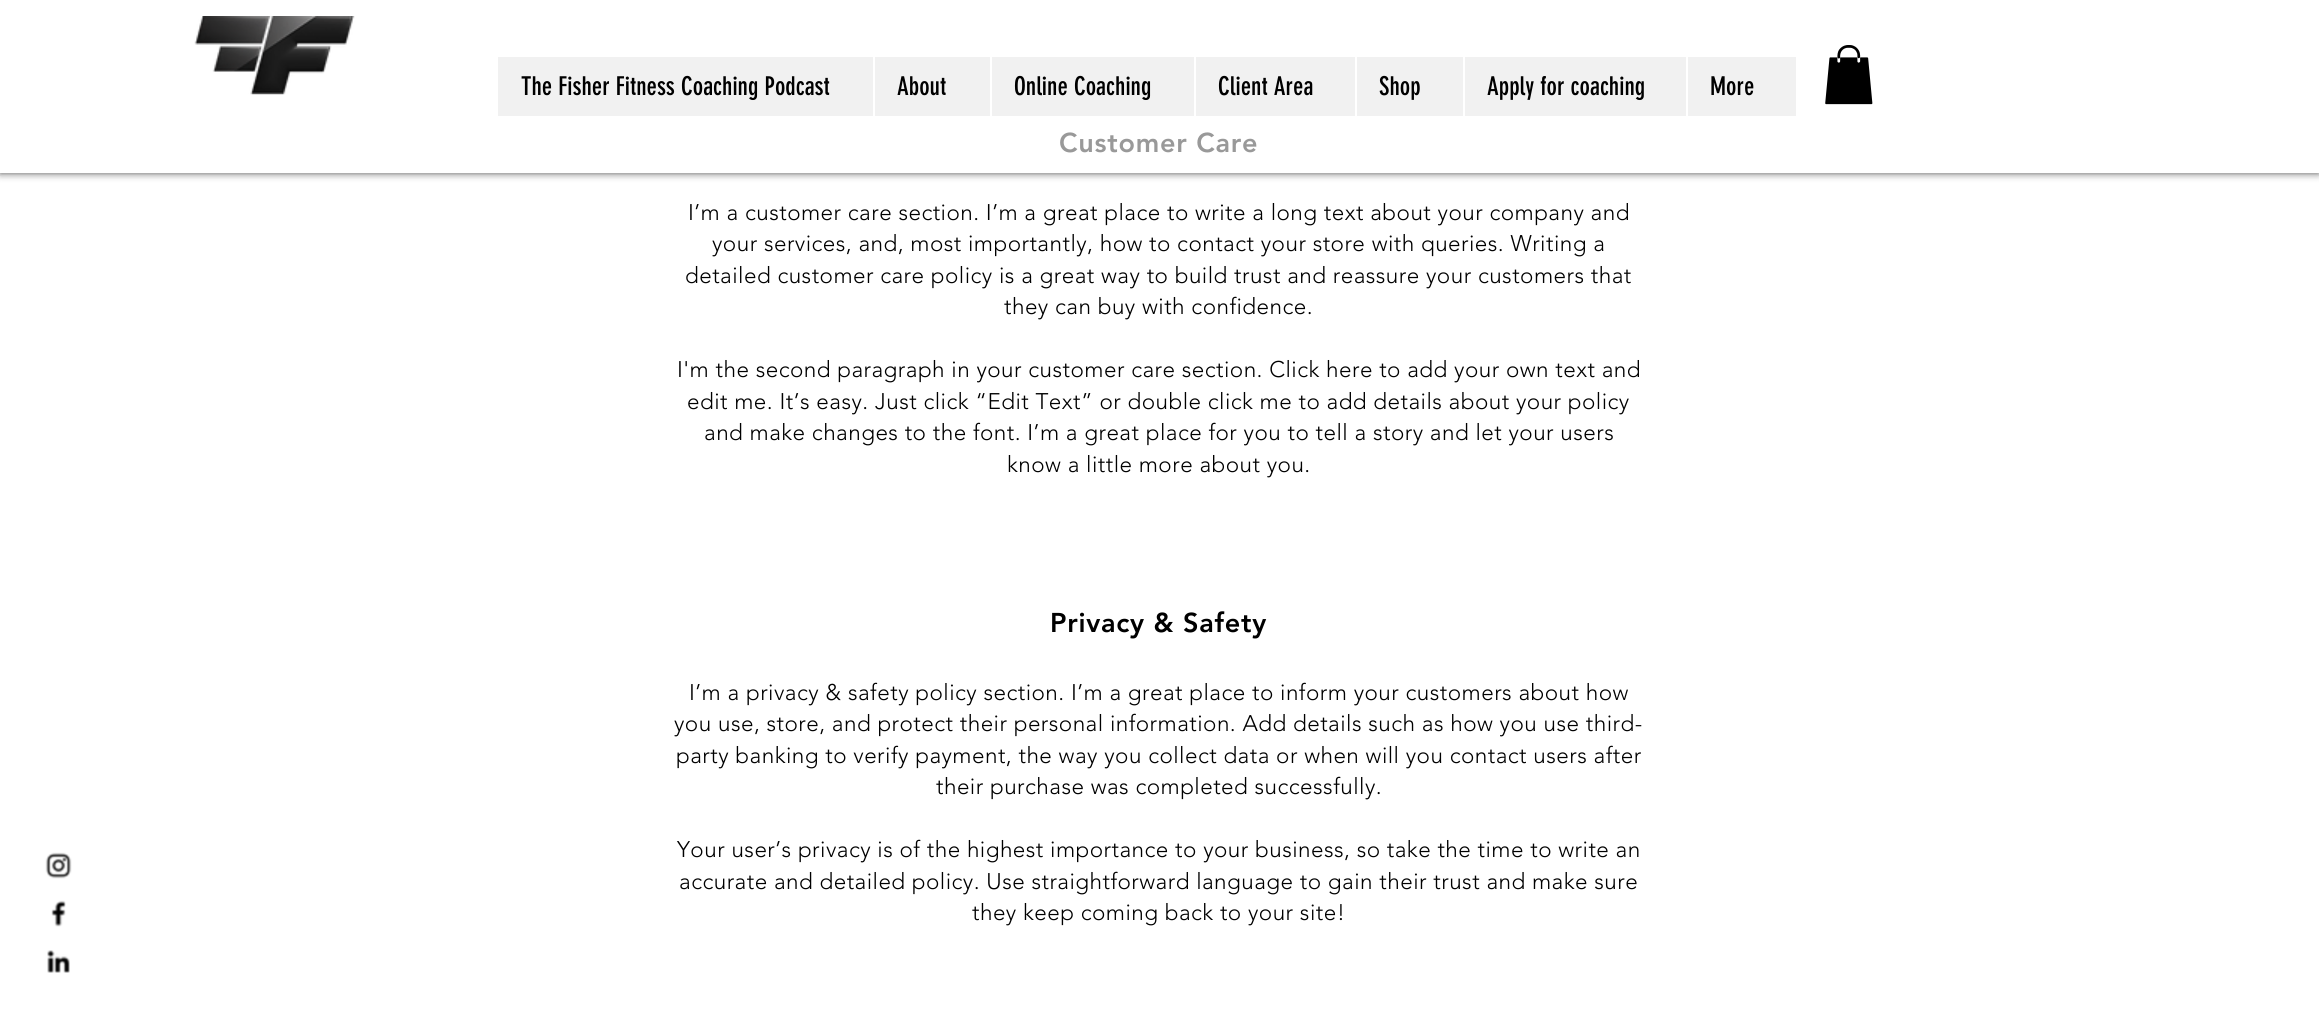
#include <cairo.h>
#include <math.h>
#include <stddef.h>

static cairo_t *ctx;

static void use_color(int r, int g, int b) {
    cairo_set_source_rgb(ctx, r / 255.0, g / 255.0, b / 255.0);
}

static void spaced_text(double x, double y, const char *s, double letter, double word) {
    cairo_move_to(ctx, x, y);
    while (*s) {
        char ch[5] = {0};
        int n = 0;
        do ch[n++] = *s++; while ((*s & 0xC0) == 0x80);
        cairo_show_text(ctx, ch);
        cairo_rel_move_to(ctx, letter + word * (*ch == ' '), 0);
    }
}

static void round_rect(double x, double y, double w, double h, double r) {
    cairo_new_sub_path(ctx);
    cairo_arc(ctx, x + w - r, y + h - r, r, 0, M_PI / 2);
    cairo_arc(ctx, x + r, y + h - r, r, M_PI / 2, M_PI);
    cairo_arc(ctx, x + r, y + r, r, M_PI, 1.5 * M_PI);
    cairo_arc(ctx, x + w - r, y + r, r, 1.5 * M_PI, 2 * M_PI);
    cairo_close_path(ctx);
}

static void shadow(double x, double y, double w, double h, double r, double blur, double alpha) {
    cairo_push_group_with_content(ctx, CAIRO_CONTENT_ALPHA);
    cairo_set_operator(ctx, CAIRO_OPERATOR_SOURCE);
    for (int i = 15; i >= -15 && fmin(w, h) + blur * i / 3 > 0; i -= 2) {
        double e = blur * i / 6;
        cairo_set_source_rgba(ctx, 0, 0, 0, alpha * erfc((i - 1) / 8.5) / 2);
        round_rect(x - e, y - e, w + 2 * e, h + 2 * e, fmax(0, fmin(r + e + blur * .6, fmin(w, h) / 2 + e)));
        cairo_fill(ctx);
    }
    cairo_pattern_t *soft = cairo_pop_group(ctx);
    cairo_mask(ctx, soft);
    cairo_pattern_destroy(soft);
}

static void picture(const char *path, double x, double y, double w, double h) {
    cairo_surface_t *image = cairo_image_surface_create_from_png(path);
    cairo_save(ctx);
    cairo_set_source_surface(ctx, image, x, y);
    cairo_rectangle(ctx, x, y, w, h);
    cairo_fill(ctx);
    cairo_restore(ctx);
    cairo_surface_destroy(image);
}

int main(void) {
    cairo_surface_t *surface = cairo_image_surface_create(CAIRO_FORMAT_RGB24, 2319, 1011);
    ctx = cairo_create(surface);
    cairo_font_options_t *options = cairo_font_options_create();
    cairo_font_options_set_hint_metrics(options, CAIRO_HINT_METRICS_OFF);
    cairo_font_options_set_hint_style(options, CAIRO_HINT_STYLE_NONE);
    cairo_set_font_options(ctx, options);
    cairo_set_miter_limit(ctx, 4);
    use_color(255, 255, 255);
    cairo_paint(ctx);
    cairo_save(ctx);
    cairo_set_fill_rule(ctx, CAIRO_FILL_RULE_EVEN_ODD);
    cairo_new_path(ctx);
    cairo_move_to(ctx, 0, 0);
    cairo_line_to(ctx, 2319, 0);
    cairo_line_to(ctx, 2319, 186);
    cairo_line_to(ctx, 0, 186);
    cairo_close_path(ctx);
    cairo_move_to(ctx, 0, 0);
    cairo_line_to(ctx, 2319, 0);
    cairo_line_to(ctx, 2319, 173);
    cairo_line_to(ctx, 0, 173);
    cairo_close_path(ctx);
    cairo_clip(ctx);
    use_color(0, 0, 0);
    shadow(0, 0, 2319, 173, 0, 4, 0.7);
    cairo_restore(ctx);
    cairo_select_font_face(ctx, "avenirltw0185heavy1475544 Black", CAIRO_FONT_SLANT_NORMAL, CAIRO_FONT_WEIGHT_NORMAL);
    cairo_set_font_size(ctx, 27);
    use_color(0, 0, 0);
    spaced_text(1059, 152, "Customer Care", 0.75, 0);
    cairo_set_source_rgba(ctx, 1, 1, 1, 0.6);
    cairo_rectangle(ctx, 0, 132, 2319, 41);
    cairo_fill(ctx);
    picture("img1.png", 194, 16, 161, 79);
    use_color(241, 241, 241);
    cairo_rectangle(ctx, 498, 57, 1298, 59);
    cairo_fill(ctx);
    cairo_select_font_face(ctx, "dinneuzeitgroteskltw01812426", CAIRO_FONT_SLANT_NORMAL, CAIRO_FONT_WEIGHT_NORMAL);
    cairo_set_font_size(ctx, 25.5);
    use_color(0, 0, 0);
    cairo_move_to(ctx, 521, 95);
    cairo_show_text(ctx, "The Fisher Fitness Coaching Podcast");
    use_color(255, 255, 255);
    cairo_rectangle(ctx, 873, 57, 2, 59);
    cairo_fill(ctx);
    use_color(0, 0, 0);
    cairo_move_to(ctx, 897, 95);
    cairo_show_text(ctx, "About");
    use_color(255, 255, 255);
    cairo_rectangle(ctx, 990, 57, 2, 59);
    cairo_fill(ctx);
    use_color(0, 0, 0);
    cairo_move_to(ctx, 1014, 95);
    cairo_show_text(ctx, "Online Coaching");
    use_color(255, 255, 255);
    cairo_rectangle(ctx, 1194, 57, 2, 59);
    cairo_fill(ctx);
    use_color(0, 0, 0);
    cairo_move_to(ctx, 1218, 95);
    cairo_show_text(ctx, "Client Area");
    use_color(255, 255, 255);
    cairo_rectangle(ctx, 1355, 57, 2, 59);
    cairo_fill(ctx);
    use_color(0, 0, 0);
    cairo_move_to(ctx, 1379, 95);
    cairo_show_text(ctx, "Shop");
    use_color(255, 255, 255);
    cairo_rectangle(ctx, 1463, 57, 2, 59);
    cairo_fill(ctx);
    use_color(0, 0, 0);
    cairo_move_to(ctx, 1487, 95);
    cairo_show_text(ctx, "Apply for coaching");
    use_color(255, 255, 255);
    cairo_rectangle(ctx, 1686, 57, 2, 59);
    cairo_fill(ctx);
    use_color(0, 0, 0);
    cairo_move_to(ctx, 1710, 95);
    cairo_show_text(ctx, "More");
    picture("img2.png", 1825, 45, 48, 60);
    picture("img3.png", 45, 852, 27, 27);
    picture("img4.png", 51, 900, 15, 27);
    picture("img5.png", 47, 950, 23, 23);
    cairo_select_font_face(ctx, "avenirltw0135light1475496 Light", CAIRO_FONT_SLANT_NORMAL, CAIRO_FONT_WEIGHT_NORMAL);
    cairo_set_font_size(ctx, 22.5);
    spaced_text(688, 220, "I’m a customer care section. I’m a great place to write a long text about your company and", 0.45, 0);
    spaced_text(712, 251, "your services, and, most importantly, how to contact your store with queries. Writing a", 0.45, 0);
    spaced_text(685, 283, "detailed customer care policy is a great way to build trust and reassure your customers that", 0.45, 0);
    spaced_text(1004, 314, "they can buy with confidence.", 0.45, 0);
    spaced_text(677, 377, "I'm the second paragraph in your customer care section. Click here to add your own text and", 0.45, 0);
    spaced_text(687, 409, "edit me. It’s easy. Just click “Edit Text” or double click me to add details about your policy", 0.45, 0);
    spaced_text(704, 440, "and make changes to the font. I’m a great place for you to tell a story and let your users", 0.45, 0);
    spaced_text(1007, 472, "know a little more about you.", 0.45, 0);
    cairo_select_font_face(ctx, "avenirltw0185heavy1475544 Black", CAIRO_FONT_SLANT_NORMAL, CAIRO_FONT_WEIGHT_NORMAL);
    cairo_set_font_size(ctx, 27);
    spaced_text(1050, 632, "Privacy & Safety", 0.75, 0);
    cairo_select_font_face(ctx, "avenirltw0135light1475496 Light", CAIRO_FONT_SLANT_NORMAL, CAIRO_FONT_WEIGHT_NORMAL);
    cairo_set_font_size(ctx, 22.5);
    spaced_text(689, 700, "I’m a privacy & safety policy section. I’m a great place to inform your customers about how", 0.45, 0);
    spaced_text(674, 731, "you use, store, and protect their personal information. Add details such as how you use third-", 0.45, 0);
    spaced_text(676, 763, "party banking to verify payment, the way you collect data or when will you contact users after", 0.45, 0);
    spaced_text(936, 794, "their purchase was completed successfully.", 0.45, 0);
    spaced_text(677, 857, "Your user’s privacy is of the highest importance to your business, so take the time to write an", 0.45, 0);
    spaced_text(679, 889, "accurate and detailed policy. Use straightforward language to gain their trust and make sure", 0.45, 0);
    spaced_text(972, 920, "they keep coming back to your site!", 0.45, 0);
    cairo_surface_write_to_png(surface, "result.png");
    cairo_font_options_destroy(options);
    cairo_destroy(ctx);
    cairo_surface_destroy(surface);
    return 0;
}
